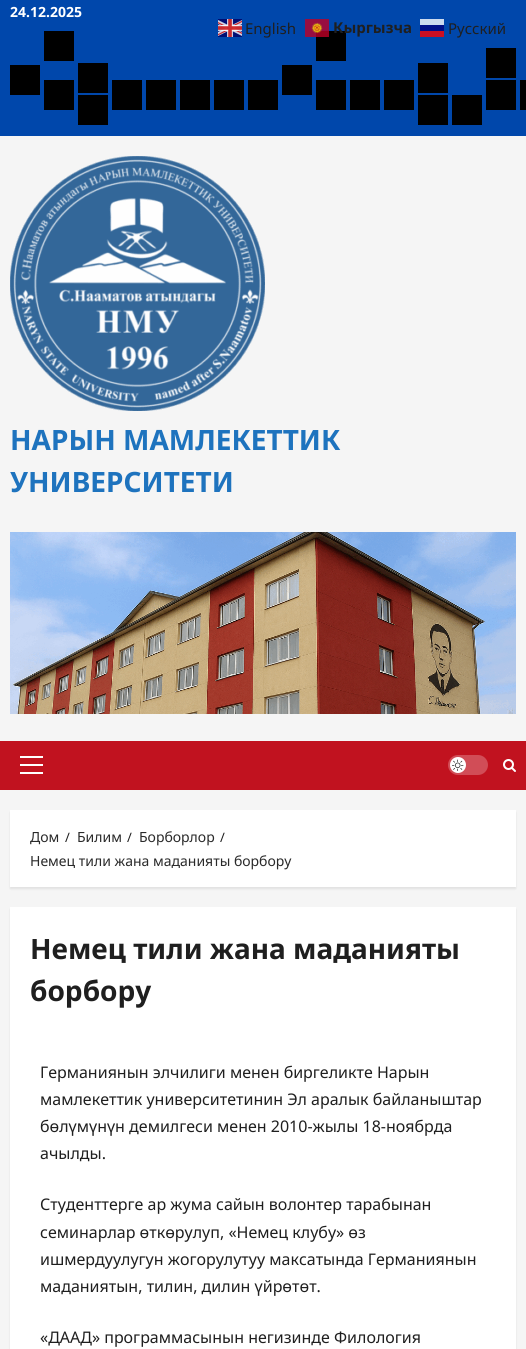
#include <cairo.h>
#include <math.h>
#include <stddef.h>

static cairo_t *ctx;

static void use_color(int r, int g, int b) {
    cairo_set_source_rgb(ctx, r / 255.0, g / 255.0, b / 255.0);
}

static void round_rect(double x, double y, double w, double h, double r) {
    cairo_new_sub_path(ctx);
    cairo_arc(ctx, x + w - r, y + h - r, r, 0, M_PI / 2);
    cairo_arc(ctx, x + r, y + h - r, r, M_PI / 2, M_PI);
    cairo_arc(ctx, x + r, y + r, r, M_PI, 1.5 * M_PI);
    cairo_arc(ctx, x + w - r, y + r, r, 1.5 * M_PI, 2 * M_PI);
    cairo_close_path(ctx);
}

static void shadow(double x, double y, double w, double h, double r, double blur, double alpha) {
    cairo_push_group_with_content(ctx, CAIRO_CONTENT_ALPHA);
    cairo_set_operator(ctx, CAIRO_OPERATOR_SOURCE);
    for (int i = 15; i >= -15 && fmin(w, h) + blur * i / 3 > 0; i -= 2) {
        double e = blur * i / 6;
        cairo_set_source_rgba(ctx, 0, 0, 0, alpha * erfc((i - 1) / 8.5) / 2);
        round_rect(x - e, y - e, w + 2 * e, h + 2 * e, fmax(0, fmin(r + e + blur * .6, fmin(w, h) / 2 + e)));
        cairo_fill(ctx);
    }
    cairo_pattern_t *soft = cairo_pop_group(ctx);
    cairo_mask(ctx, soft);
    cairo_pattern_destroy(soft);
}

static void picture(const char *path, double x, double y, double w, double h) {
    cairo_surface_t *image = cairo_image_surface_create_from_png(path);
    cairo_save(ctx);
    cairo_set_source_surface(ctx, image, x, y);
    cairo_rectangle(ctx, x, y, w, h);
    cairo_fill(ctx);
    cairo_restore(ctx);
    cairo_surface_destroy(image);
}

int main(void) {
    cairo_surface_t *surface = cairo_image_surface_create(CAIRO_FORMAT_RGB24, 526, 1349);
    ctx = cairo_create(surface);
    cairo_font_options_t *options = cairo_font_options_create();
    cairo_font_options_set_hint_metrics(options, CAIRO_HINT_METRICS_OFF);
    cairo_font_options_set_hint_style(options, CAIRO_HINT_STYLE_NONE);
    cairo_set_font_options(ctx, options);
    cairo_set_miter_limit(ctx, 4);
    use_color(245, 245, 245);
    cairo_paint(ctx);
    use_color(0, 71, 171);
    cairo_rectangle(ctx, 0, 0, 526, 136);
    cairo_fill(ctx);
    cairo_select_font_face(ctx, "Noto Sans", CAIRO_FONT_SLANT_NORMAL, CAIRO_FONT_WEIGHT_BOLD);
    cairo_set_font_size(ctx, 14);
    use_color(255, 255, 255);
    cairo_move_to(ctx, 10, 17);
    cairo_show_text(ctx, "24.12.2025");
    use_color(0, 0, 0);
    cairo_rectangle(ctx, 10, 65, 30, 30);
    cairo_fill(ctx);
    cairo_rectangle(ctx, 44, 31, 30, 30);
    cairo_fill(ctx);
    cairo_rectangle(ctx, 44, 80, 30, 30);
    cairo_fill(ctx);
    cairo_rectangle(ctx, 78, 63, 30, 30);
    cairo_fill(ctx);
    cairo_rectangle(ctx, 78, 95, 30, 30);
    cairo_fill(ctx);
    cairo_rectangle(ctx, 112, 80, 30, 30);
    cairo_fill(ctx);
    cairo_rectangle(ctx, 146, 80, 30, 30);
    cairo_fill(ctx);
    cairo_rectangle(ctx, 180, 80, 30, 30);
    cairo_fill(ctx);
    cairo_rectangle(ctx, 214, 80, 30, 30);
    cairo_fill(ctx);
    cairo_rectangle(ctx, 248, 80, 30, 30);
    cairo_fill(ctx);
    cairo_rectangle(ctx, 282, 65, 30, 30);
    cairo_fill(ctx);
    cairo_rectangle(ctx, 316, 31, 30, 30);
    cairo_fill(ctx);
    cairo_rectangle(ctx, 316, 80, 30, 30);
    cairo_fill(ctx);
    cairo_rectangle(ctx, 350, 80, 30, 30);
    cairo_fill(ctx);
    cairo_rectangle(ctx, 384, 80, 30, 30);
    cairo_fill(ctx);
    cairo_rectangle(ctx, 418, 63, 30, 30);
    cairo_fill(ctx);
    cairo_rectangle(ctx, 418, 95, 30, 30);
    cairo_fill(ctx);
    cairo_rectangle(ctx, 452, 95, 30, 30);
    cairo_fill(ctx);
    cairo_rectangle(ctx, 486, 48, 30, 30);
    cairo_fill(ctx);
    cairo_rectangle(ctx, 486, 80, 30, 30);
    cairo_fill(ctx);
    cairo_rectangle(ctx, 520, 80, 6, 30);
    cairo_fill(ctx);
    picture("img1.png", 10, 156, 255, 255);
    cairo_set_font_size(ctx, 28);
    use_color(30, 115, 190);
    cairo_move_to(ctx, 10, 450);
    cairo_show_text(ctx, "НАРЫН МАМЛЕКЕТТИК");
    cairo_move_to(ctx, 10, 492);
    cairo_show_text(ctx, "УНИВЕРСИТЕТИ");
    picture("img2.png", 10, 532, 506, 182);
    use_color(193, 18, 31);
    cairo_rectangle(ctx, 0, 741, 526, 49);
    cairo_fill(ctx);
    use_color(255, 255, 255);
    cairo_rectangle(ctx, 20, 764, 23, 2);
    cairo_fill(ctx);
    cairo_rectangle(ctx, 20, 756, 23, 2);
    cairo_fill(ctx);
    cairo_rectangle(ctx, 20, 772, 23, 2);
    cairo_fill(ctx);
    use_color(209, 77, 87);
    round_rect(448, 755, 40, 20, 10);
    cairo_fill(ctx);
    use_color(255, 255, 255);
    cairo_arc(ctx, 458, 765, 8, 0, 2 * M_PI);
    cairo_fill(ctx);
    picture("img3.png", 452, 759, 12, 12);
    picture("img4.png", 503, 759, 13, 13);
    use_color(0, 0, 0);
    shadow(10, 812, 506, 77, 0, 1, 0.08);
    use_color(255, 255, 255);
    cairo_rectangle(ctx, 10, 810, 506, 77);
    cairo_fill(ctx);
    cairo_select_font_face(ctx, "Noto Sans", CAIRO_FONT_SLANT_NORMAL, CAIRO_FONT_WEIGHT_NORMAL);
    cairo_set_font_size(ctx, 14);
    use_color(42, 42, 42);
    cairo_move_to(ctx, 30, 842);
    cairo_show_text(ctx, "Дом");
    cairo_set_font_size(ctx, 13);
    use_color(31, 31, 31);
    cairo_move_to(ctx, 65, 842);
    cairo_show_text(ctx, "/");
    cairo_set_font_size(ctx, 14);
    use_color(42, 42, 42);
    cairo_move_to(ctx, 77, 842);
    cairo_show_text(ctx, "Билим");
    cairo_set_font_size(ctx, 13);
    use_color(31, 31, 31);
    cairo_move_to(ctx, 127, 842);
    cairo_show_text(ctx, "/");
    cairo_set_font_size(ctx, 14);
    use_color(42, 42, 42);
    cairo_move_to(ctx, 139, 842);
    cairo_show_text(ctx, "Борборлор");
    cairo_set_font_size(ctx, 13);
    use_color(31, 31, 31);
    cairo_move_to(ctx, 220, 842);
    cairo_show_text(ctx, "/");
    cairo_set_font_size(ctx, 14);
    use_color(42, 42, 42);
    cairo_move_to(ctx, 30, 866);
    cairo_show_text(ctx, "Немец тили жана маданияты борбору");
    use_color(0, 0, 0);
    shadow(10, 909, 506, 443, 0, 1, 0.08);
    use_color(255, 255, 255);
    cairo_rectangle(ctx, 10, 907, 506, 442);
    cairo_fill(ctx);
    cairo_select_font_face(ctx, "Noto Sans", CAIRO_FONT_SLANT_NORMAL, CAIRO_FONT_WEIGHT_BOLD);
    cairo_set_font_size(ctx, 28);
    use_color(31, 31, 31);
    cairo_move_to(ctx, 30, 959);
    cairo_show_text(ctx, "Немец тили жана маданияты");
    cairo_move_to(ctx, 30, 1001);
    cairo_show_text(ctx, "борбору");
    cairo_select_font_face(ctx, "Noto Sans", CAIRO_FONT_SLANT_NORMAL, CAIRO_FONT_WEIGHT_NORMAL);
    cairo_set_font_size(ctx, 16);
    cairo_move_to(ctx, 40, 1078);
    cairo_show_text(ctx, "Германиянын элчилиги менен биргеликте Нарын");
    cairo_move_to(ctx, 40, 1105);
    cairo_show_text(ctx, "мамлекеттик университетинин Эл аралык байланыштар");
    cairo_move_to(ctx, 40, 1132);
    cairo_show_text(ctx, "бөлүмүнүн демилгеси менен 2010-жылы 18-ноябрда");
    cairo_move_to(ctx, 40, 1159);
    cairo_show_text(ctx, "ачылды.");
    cairo_move_to(ctx, 40, 1210);
    cairo_show_text(ctx, "Студенттерге ар жума сайын волонтер тарабынан");
    cairo_move_to(ctx, 40, 1238);
    cairo_show_text(ctx, "семинарлар өткөрулуп, «Немец клубу» өз");
    cairo_move_to(ctx, 40, 1265);
    cairo_show_text(ctx, "ишмердуулугун жогорулутуу максатында Германиянын");
    cairo_move_to(ctx, 40, 1292);
    cairo_show_text(ctx, "маданиятын, тилин, дилин үйрөтөт.");
    cairo_move_to(ctx, 40, 1343);
    cairo_show_text(ctx, "«ДААД» программасынын негизинде Филология");
    picture("img5.png", 218, 19, 24, 18);
    cairo_set_font_size(ctx, 15);
    cairo_move_to(ctx, 245, 34);
    cairo_show_text(ctx, "English");
    picture("img6.png", 305, 19, 24, 18);
    cairo_select_font_face(ctx, "Noto Sans", CAIRO_FONT_SLANT_NORMAL, CAIRO_FONT_WEIGHT_BOLD);
    cairo_move_to(ctx, 333, 33);
    cairo_show_text(ctx, "Кыргызча");
    cairo_select_font_face(ctx, "Noto Sans", CAIRO_FONT_SLANT_NORMAL, CAIRO_FONT_WEIGHT_NORMAL);
    cairo_move_to(ctx, 448, 34);
    cairo_show_text(ctx, "Русский");
    use_color(204, 218, 238);
    cairo_rectangle(ctx, 420, 19, 24, 6);
    cairo_fill(ctx);
    use_color(1, 15, 135);
    cairo_rectangle(ctx, 420, 25, 24, 6);
    cairo_fill(ctx);
    use_color(203, 15, 35);
    cairo_rectangle(ctx, 420, 31, 24, 6);
    cairo_fill(ctx);
    cairo_surface_write_to_png(surface, "result.png");
    cairo_font_options_destroy(options);
    cairo_destroy(ctx);
    cairo_surface_destroy(surface);
    return 0;
}
